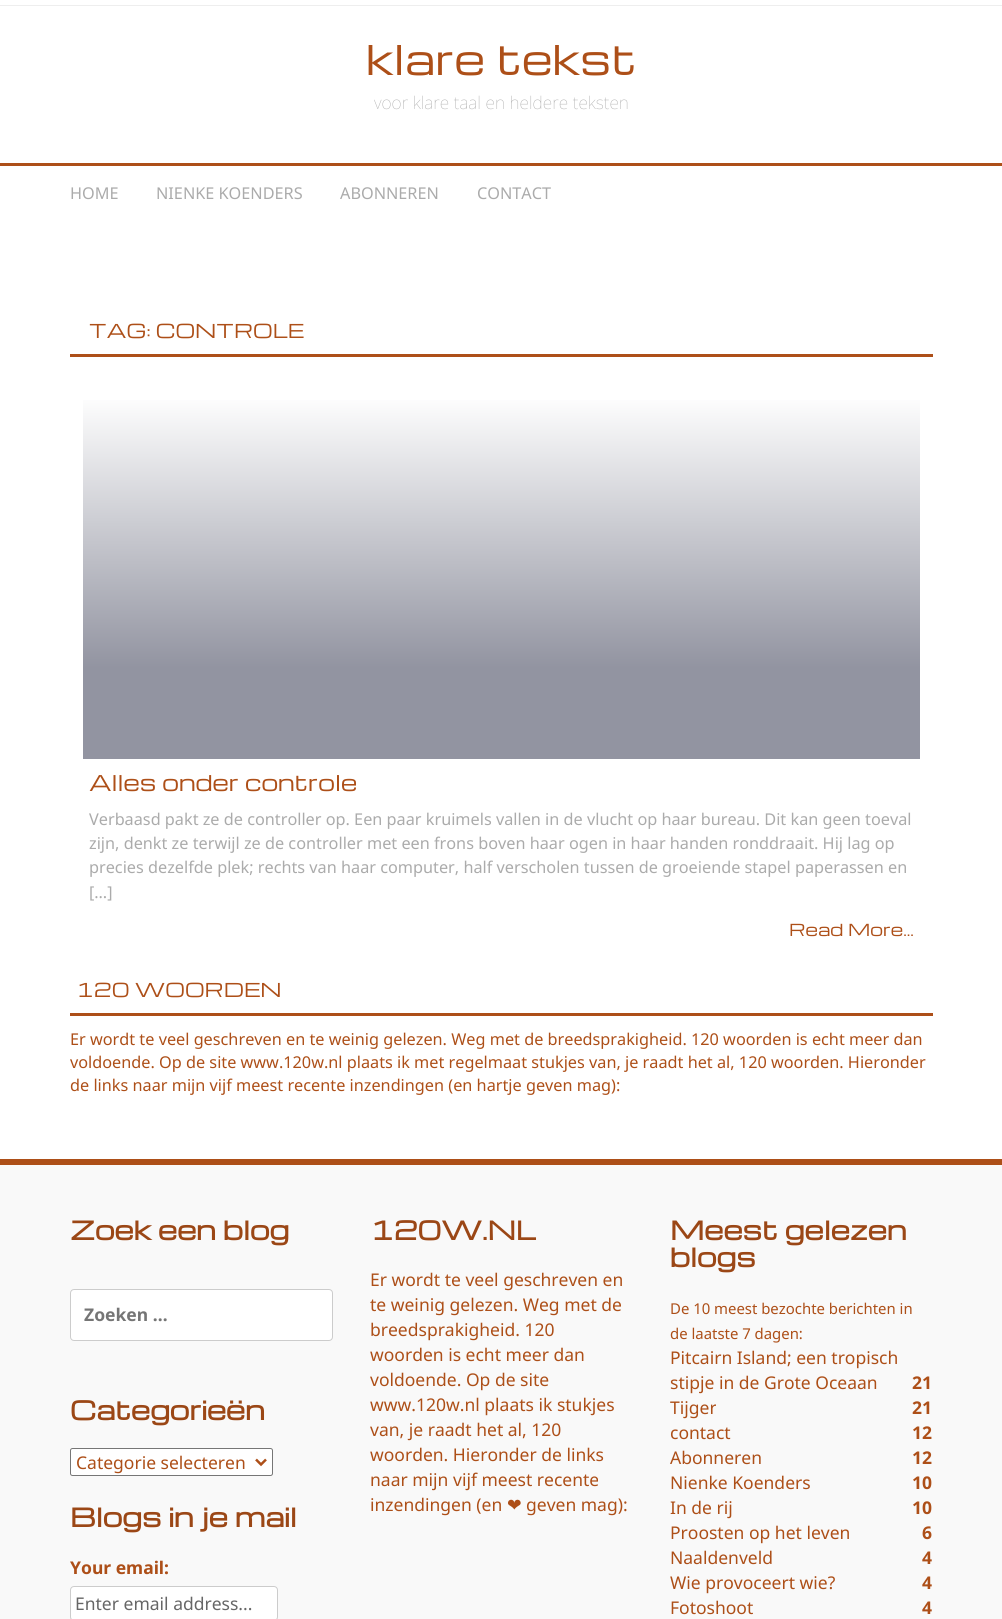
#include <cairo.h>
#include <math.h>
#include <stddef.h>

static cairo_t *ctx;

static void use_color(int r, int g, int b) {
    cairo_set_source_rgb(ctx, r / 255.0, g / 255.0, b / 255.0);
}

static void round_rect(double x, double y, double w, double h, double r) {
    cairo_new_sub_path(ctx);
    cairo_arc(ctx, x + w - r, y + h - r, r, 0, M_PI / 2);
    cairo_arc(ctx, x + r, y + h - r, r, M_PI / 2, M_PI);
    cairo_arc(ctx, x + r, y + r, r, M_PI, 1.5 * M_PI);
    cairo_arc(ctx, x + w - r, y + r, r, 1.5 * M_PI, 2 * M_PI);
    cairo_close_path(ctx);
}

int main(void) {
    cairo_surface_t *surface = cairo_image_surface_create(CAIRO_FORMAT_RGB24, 1002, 1619);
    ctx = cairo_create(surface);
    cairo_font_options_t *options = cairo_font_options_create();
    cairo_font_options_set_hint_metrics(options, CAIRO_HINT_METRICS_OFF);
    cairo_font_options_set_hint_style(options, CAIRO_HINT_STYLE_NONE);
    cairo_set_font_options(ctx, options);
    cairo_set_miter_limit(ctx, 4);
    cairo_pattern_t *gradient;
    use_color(255, 255, 255);
    cairo_paint(ctx);
    use_color(238, 238, 238);
    cairo_rectangle(ctx, 0, 5, 1002, 1);
    cairo_fill(ctx);
    cairo_select_font_face(ctx, "Michroma", CAIRO_FONT_SLANT_NORMAL, CAIRO_FONT_WEIGHT_NORMAL);
    cairo_set_font_size(ctx, 40);
    use_color(173, 79, 24);
    cairo_move_to(ctx, 366, 75);
    cairo_show_text(ctx, "klare tekst");
    cairo_select_font_face(ctx, "Noto Sans Thin", CAIRO_FONT_SLANT_NORMAL, CAIRO_FONT_WEIGHT_NORMAL);
    cairo_set_font_size(ctx, 17.5);
    use_color(171, 171, 171);
    cairo_move_to(ctx, 374, 109);
    cairo_show_text(ctx, "voor klare taal en heldere teksten");
    use_color(173, 79, 24);
    cairo_rectangle(ctx, 0, 163, 1002, 3);
    cairo_fill(ctx);
    cairo_select_font_face(ctx, "Noto Sans", CAIRO_FONT_SLANT_NORMAL, CAIRO_FONT_WEIGHT_NORMAL);
    cairo_set_font_size(ctx, 16.25);
    use_color(171, 171, 171);
    cairo_move_to(ctx, 70, 199);
    cairo_show_text(ctx, "HOME");
    cairo_move_to(ctx, 156, 199);
    cairo_show_text(ctx, "NIENKE KOENDERS");
    cairo_move_to(ctx, 340, 199);
    cairo_show_text(ctx, "ABONNEREN");
    cairo_move_to(ctx, 477, 199);
    cairo_show_text(ctx, "CONTACT");
    use_color(173, 79, 24);
    cairo_rectangle(ctx, 70, 354, 863, 3);
    cairo_fill(ctx);
    cairo_select_font_face(ctx, "Michroma", CAIRO_FONT_SLANT_NORMAL, CAIRO_FONT_WEIGHT_NORMAL);
    cairo_set_font_size(ctx, 18.75);
    cairo_move_to(ctx, 89, 338);
    cairo_show_text(ctx, "TAG: CONTROLE");
    gradient = cairo_pattern_create_linear(501, 394, 501, 759);
    cairo_pattern_add_color_stop_rgba(gradient, 0, 1, 1, 1, 1);
    cairo_pattern_add_color_stop_rgba(gradient, 0.75, 0.573, 0.58, 0.631, 1);
    cairo_set_source(ctx, gradient);
    cairo_pattern_destroy(gradient);
    cairo_rectangle(ctx, 83, 400, 837, 359);
    cairo_fill(ctx);
    cairo_set_font_size(ctx, 21.25);
    use_color(173, 79, 24);
    cairo_move_to(ctx, 89, 791);
    cairo_show_text(ctx, "Alles onder controle");
    cairo_select_font_face(ctx, "Noto Sans", CAIRO_FONT_SLANT_NORMAL, CAIRO_FONT_WEIGHT_NORMAL);
    cairo_set_font_size(ctx, 16.25);
    use_color(171, 171, 171);
    cairo_move_to(ctx, 89, 825);
    cairo_show_text(ctx, "Verbaasd pakt ze de controller op. Een paar kruimels vallen in de vlucht op haar bureau. Dit kan geen toeval");
    cairo_move_to(ctx, 89, 849);
    cairo_show_text(ctx, "zijn, denkt ze terwijl ze de controller met een frons boven haar ogen in haar handen ronddraait. Hij lag op");
    cairo_move_to(ctx, 89, 873);
    cairo_show_text(ctx, "precies dezelfde plek; rechts van haar computer, half verscholen tussen de groeiende stapel paperassen en");
    cairo_move_to(ctx, 89, 898);
    cairo_show_text(ctx, "[…]");
    cairo_select_font_face(ctx, "Michroma", CAIRO_FONT_SLANT_NORMAL, CAIRO_FONT_WEIGHT_NORMAL);
    use_color(173, 79, 24);
    cairo_move_to(ctx, 789, 936);
    cairo_show_text(ctx, "Read More...");
    cairo_rectangle(ctx, 70, 1013, 863, 3);
    cairo_fill(ctx);
    cairo_set_font_size(ctx, 18.75);
    cairo_move_to(ctx, 76, 997);
    cairo_show_text(ctx, "120 WOORDEN");
    cairo_select_font_face(ctx, "Noto Sans", CAIRO_FONT_SLANT_NORMAL, CAIRO_FONT_WEIGHT_NORMAL);
    cairo_set_font_size(ctx, 16.25);
    cairo_move_to(ctx, 70, 1045);
    cairo_show_text(ctx, "Er wordt te veel geschreven en te weinig gelezen. Weg met de breedsprakigheid. 120 woorden is echt meer dan");
    cairo_move_to(ctx, 70, 1068);
    cairo_show_text(ctx, "voldoende. Op de site www.120w.nl plaats ik met regelmaat stukjes van, je raadt het al, 120 woorden. Hieronder");
    cairo_move_to(ctx, 70, 1091);
    cairo_show_text(ctx, "de links naar mijn vijf meest recente inzendingen (en hartje geven mag):");
    use_color(249, 249, 249);
    cairo_rectangle(ctx, 0, 1165, 1002, 454);
    cairo_fill(ctx);
    use_color(173, 79, 24);
    cairo_rectangle(ctx, 0, 1159, 1002, 6);
    cairo_fill(ctx);
    cairo_select_font_face(ctx, "Michroma", CAIRO_FONT_SLANT_NORMAL, CAIRO_FONT_WEIGHT_BOLD);
    cairo_set_font_size(ctx, 25);
    use_color(155, 71, 22);
    cairo_move_to(ctx, 70, 1240);
    cairo_show_text(ctx, "Zoek een blog");
    use_color(255, 255, 255);
    round_rect(70.5, 1289.5, 262, 51, 3.5);
    cairo_fill_preserve(ctx);
    use_color(204, 204, 204);
    cairo_set_line_width(ctx, 1);
    cairo_stroke(ctx);
    cairo_select_font_face(ctx, "Noto Sans", CAIRO_FONT_SLANT_NORMAL, CAIRO_FONT_WEIGHT_BOLD);
    cairo_set_font_size(ctx, 17.5);
    use_color(117, 117, 117);
    cairo_move_to(ctx, 84, 1321);
    cairo_show_text(ctx, "Zoeken …");
    cairo_select_font_face(ctx, "Michroma", CAIRO_FONT_SLANT_NORMAL, CAIRO_FONT_WEIGHT_BOLD);
    cairo_set_font_size(ctx, 25);
    use_color(155, 71, 22);
    cairo_move_to(ctx, 70, 1420);
    cairo_show_text(ctx, "Categorieën");
    use_color(255, 255, 255);
    round_rect(70.5, 1448.5, 202, 27, 2);
    cairo_fill_preserve(ctx);
    use_color(118, 118, 118);
    cairo_stroke(ctx);
    cairo_new_path(ctx);
    cairo_move_to(ctx, 256, 1459.5);
    cairo_line_to(ctx, 261, 1464.5);
    cairo_line_to(ctx, 266, 1459.5);
    use_color(173, 79, 24);
    cairo_set_line_width(ctx, 2.5);
    cairo_stroke(ctx);
    cairo_select_font_face(ctx, "Noto Sans", CAIRO_FONT_SLANT_NORMAL, CAIRO_FONT_WEIGHT_NORMAL);
    cairo_set_font_size(ctx, 17.5);
    cairo_move_to(ctx, 76, 1469);
    cairo_show_text(ctx, "Categorie selecteren");
    cairo_select_font_face(ctx, "Michroma", CAIRO_FONT_SLANT_NORMAL, CAIRO_FONT_WEIGHT_BOLD);
    cairo_set_font_size(ctx, 25);
    use_color(155, 71, 22);
    cairo_move_to(ctx, 70, 1527);
    cairo_show_text(ctx, "Blogs in je mail");
    cairo_select_font_face(ctx, "Noto Sans", CAIRO_FONT_SLANT_NORMAL, CAIRO_FONT_WEIGHT_BOLD);
    cairo_set_font_size(ctx, 17.5);
    use_color(173, 79, 24);
    cairo_move_to(ctx, 70, 1574);
    cairo_show_text(ctx, "Your email:");
    use_color(255, 255, 255);
    round_rect(70.5, 1586.5, 207, 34, 3.5);
    cairo_fill_preserve(ctx);
    use_color(204, 204, 204);
    cairo_set_line_width(ctx, 1);
    cairo_stroke(ctx);
    cairo_select_font_face(ctx, "Noto Sans", CAIRO_FONT_SLANT_NORMAL, CAIRO_FONT_WEIGHT_NORMAL);
    use_color(102, 102, 102);
    cairo_move_to(ctx, 75, 1610);
    cairo_show_text(ctx, "Enter email address...");
    cairo_select_font_face(ctx, "Michroma", CAIRO_FONT_SLANT_NORMAL, CAIRO_FONT_WEIGHT_BOLD);
    cairo_set_font_size(ctx, 25);
    use_color(155, 71, 22);
    cairo_move_to(ctx, 370, 1240);
    cairo_show_text(ctx, "120W.NL");
    cairo_select_font_face(ctx, "Noto Sans", CAIRO_FONT_SLANT_NORMAL, CAIRO_FONT_WEIGHT_NORMAL);
    cairo_set_font_size(ctx, 17.5);
    use_color(173, 79, 24);
    cairo_move_to(ctx, 370, 1286);
    cairo_show_text(ctx, "Er wordt te veel geschreven en");
    cairo_move_to(ctx, 370, 1311);
    cairo_show_text(ctx, "te weinig gelezen. Weg met de");
    cairo_move_to(ctx, 370, 1336);
    cairo_show_text(ctx, "breedsprakigheid. 120");
    cairo_move_to(ctx, 370, 1361);
    cairo_show_text(ctx, "woorden is echt meer dan");
    cairo_move_to(ctx, 370, 1386);
    cairo_show_text(ctx, "voldoende. Op de site");
    cairo_move_to(ctx, 370, 1411);
    cairo_show_text(ctx, "www.120w.nl plaats ik stukjes");
    cairo_move_to(ctx, 370, 1436);
    cairo_show_text(ctx, "van, je raadt het al, 120");
    cairo_move_to(ctx, 370, 1461);
    cairo_show_text(ctx, "woorden. Hieronder de links");
    cairo_move_to(ctx, 370, 1486);
    cairo_show_text(ctx, "naar mijn vijf meest recente");
    cairo_move_to(ctx, 370, 1511);
    cairo_show_text(ctx, "inzendingen (en");
    cairo_select_font_face(ctx, "DejaVu Sans", CAIRO_FONT_SLANT_NORMAL, CAIRO_FONT_WEIGHT_NORMAL);
    cairo_move_to(ctx, 507, 1511);
    cairo_show_text(ctx, "❤");
    cairo_select_font_face(ctx, "Noto Sans", CAIRO_FONT_SLANT_NORMAL, CAIRO_FONT_WEIGHT_NORMAL);
    cairo_move_to(ctx, 526, 1511);
    cairo_show_text(ctx, "geven mag):");
    cairo_select_font_face(ctx, "Michroma", CAIRO_FONT_SLANT_NORMAL, CAIRO_FONT_WEIGHT_BOLD);
    cairo_set_font_size(ctx, 25);
    use_color(155, 71, 22);
    cairo_move_to(ctx, 670, 1240);
    cairo_show_text(ctx, "Meest gelezen");
    cairo_move_to(ctx, 670, 1267);
    cairo_show_text(ctx, "blogs");
    cairo_select_font_face(ctx, "Noto Sans", CAIRO_FONT_SLANT_NORMAL, CAIRO_FONT_WEIGHT_NORMAL);
    cairo_set_font_size(ctx, 14.9);
    use_color(173, 79, 24);
    cairo_move_to(ctx, 670, 1314);
    cairo_show_text(ctx, "De 10 meest bezochte berichten in");
    cairo_move_to(ctx, 670, 1339);
    cairo_show_text(ctx, "de laatste 7 dagen:");
    cairo_set_font_size(ctx, 17.5);
    cairo_move_to(ctx, 670, 1364);
    cairo_show_text(ctx, "Pitcairn Island; een tropisch");
    cairo_move_to(ctx, 670, 1389);
    cairo_show_text(ctx, "stipje in de Grote Oceaan");
    cairo_select_font_face(ctx, "Noto Sans", CAIRO_FONT_SLANT_NORMAL, CAIRO_FONT_WEIGHT_BOLD);
    cairo_move_to(ctx, 912, 1389);
    cairo_show_text(ctx, "21");
    cairo_select_font_face(ctx, "Noto Sans", CAIRO_FONT_SLANT_NORMAL, CAIRO_FONT_WEIGHT_NORMAL);
    cairo_move_to(ctx, 670, 1414);
    cairo_show_text(ctx, "Tijger");
    cairo_select_font_face(ctx, "Noto Sans", CAIRO_FONT_SLANT_NORMAL, CAIRO_FONT_WEIGHT_BOLD);
    cairo_move_to(ctx, 912, 1414);
    cairo_show_text(ctx, "21");
    cairo_select_font_face(ctx, "Noto Sans", CAIRO_FONT_SLANT_NORMAL, CAIRO_FONT_WEIGHT_NORMAL);
    cairo_move_to(ctx, 670, 1439);
    cairo_show_text(ctx, "contact");
    cairo_select_font_face(ctx, "Noto Sans", CAIRO_FONT_SLANT_NORMAL, CAIRO_FONT_WEIGHT_BOLD);
    cairo_move_to(ctx, 912, 1439);
    cairo_show_text(ctx, "12");
    cairo_select_font_face(ctx, "Noto Sans", CAIRO_FONT_SLANT_NORMAL, CAIRO_FONT_WEIGHT_NORMAL);
    cairo_move_to(ctx, 670, 1464);
    cairo_show_text(ctx, "Abonneren");
    cairo_select_font_face(ctx, "Noto Sans", CAIRO_FONT_SLANT_NORMAL, CAIRO_FONT_WEIGHT_BOLD);
    cairo_move_to(ctx, 912, 1464);
    cairo_show_text(ctx, "12");
    cairo_select_font_face(ctx, "Noto Sans", CAIRO_FONT_SLANT_NORMAL, CAIRO_FONT_WEIGHT_NORMAL);
    cairo_move_to(ctx, 670, 1489);
    cairo_show_text(ctx, "Nienke Koenders");
    cairo_select_font_face(ctx, "Noto Sans", CAIRO_FONT_SLANT_NORMAL, CAIRO_FONT_WEIGHT_BOLD);
    cairo_move_to(ctx, 912, 1489);
    cairo_show_text(ctx, "10");
    cairo_select_font_face(ctx, "Noto Sans", CAIRO_FONT_SLANT_NORMAL, CAIRO_FONT_WEIGHT_NORMAL);
    cairo_move_to(ctx, 670, 1514);
    cairo_show_text(ctx, "In de rij");
    cairo_select_font_face(ctx, "Noto Sans", CAIRO_FONT_SLANT_NORMAL, CAIRO_FONT_WEIGHT_BOLD);
    cairo_move_to(ctx, 912, 1514);
    cairo_show_text(ctx, "10");
    cairo_select_font_face(ctx, "Noto Sans", CAIRO_FONT_SLANT_NORMAL, CAIRO_FONT_WEIGHT_NORMAL);
    cairo_move_to(ctx, 670, 1539);
    cairo_show_text(ctx, "Proosten op het leven");
    cairo_select_font_face(ctx, "Noto Sans", CAIRO_FONT_SLANT_NORMAL, CAIRO_FONT_WEIGHT_BOLD);
    cairo_move_to(ctx, 922, 1539);
    cairo_show_text(ctx, "6");
    cairo_select_font_face(ctx, "Noto Sans", CAIRO_FONT_SLANT_NORMAL, CAIRO_FONT_WEIGHT_NORMAL);
    cairo_move_to(ctx, 670, 1564);
    cairo_show_text(ctx, "Naaldenveld");
    cairo_select_font_face(ctx, "Noto Sans", CAIRO_FONT_SLANT_NORMAL, CAIRO_FONT_WEIGHT_BOLD);
    cairo_move_to(ctx, 922, 1564);
    cairo_show_text(ctx, "4");
    cairo_select_font_face(ctx, "Noto Sans", CAIRO_FONT_SLANT_NORMAL, CAIRO_FONT_WEIGHT_NORMAL);
    cairo_move_to(ctx, 670, 1589);
    cairo_show_text(ctx, "Wie provoceert wie?");
    cairo_select_font_face(ctx, "Noto Sans", CAIRO_FONT_SLANT_NORMAL, CAIRO_FONT_WEIGHT_BOLD);
    cairo_move_to(ctx, 922, 1589);
    cairo_show_text(ctx, "4");
    cairo_select_font_face(ctx, "Noto Sans", CAIRO_FONT_SLANT_NORMAL, CAIRO_FONT_WEIGHT_NORMAL);
    cairo_move_to(ctx, 670, 1614);
    cairo_show_text(ctx, "Fotoshoot");
    cairo_select_font_face(ctx, "Noto Sans", CAIRO_FONT_SLANT_NORMAL, CAIRO_FONT_WEIGHT_BOLD);
    cairo_move_to(ctx, 922, 1614);
    cairo_show_text(ctx, "4");
    cairo_surface_write_to_png(surface, "result.png");
    cairo_font_options_destroy(options);
    cairo_destroy(ctx);
    cairo_surface_destroy(surface);
    return 0;
}
